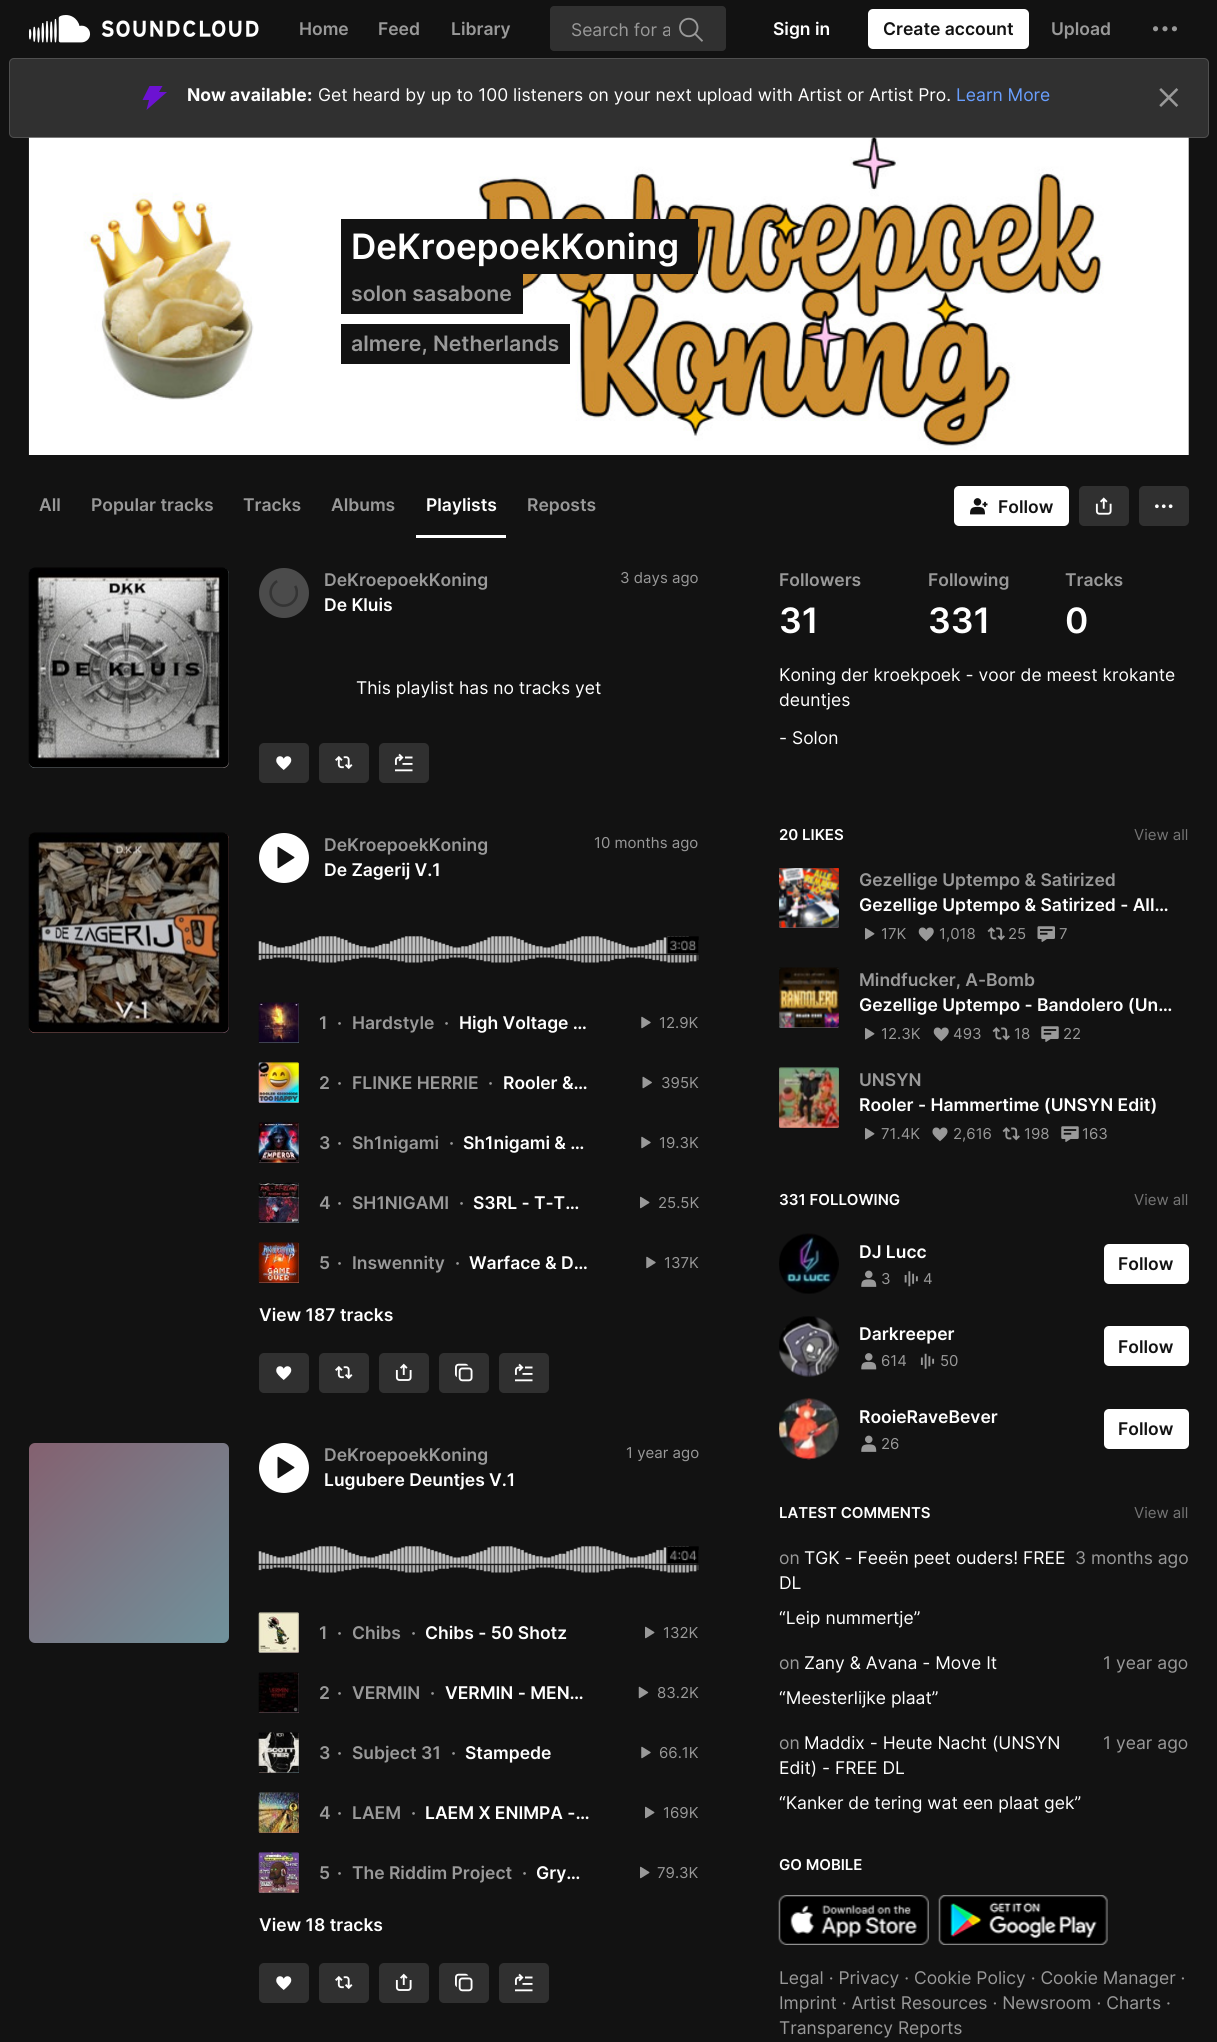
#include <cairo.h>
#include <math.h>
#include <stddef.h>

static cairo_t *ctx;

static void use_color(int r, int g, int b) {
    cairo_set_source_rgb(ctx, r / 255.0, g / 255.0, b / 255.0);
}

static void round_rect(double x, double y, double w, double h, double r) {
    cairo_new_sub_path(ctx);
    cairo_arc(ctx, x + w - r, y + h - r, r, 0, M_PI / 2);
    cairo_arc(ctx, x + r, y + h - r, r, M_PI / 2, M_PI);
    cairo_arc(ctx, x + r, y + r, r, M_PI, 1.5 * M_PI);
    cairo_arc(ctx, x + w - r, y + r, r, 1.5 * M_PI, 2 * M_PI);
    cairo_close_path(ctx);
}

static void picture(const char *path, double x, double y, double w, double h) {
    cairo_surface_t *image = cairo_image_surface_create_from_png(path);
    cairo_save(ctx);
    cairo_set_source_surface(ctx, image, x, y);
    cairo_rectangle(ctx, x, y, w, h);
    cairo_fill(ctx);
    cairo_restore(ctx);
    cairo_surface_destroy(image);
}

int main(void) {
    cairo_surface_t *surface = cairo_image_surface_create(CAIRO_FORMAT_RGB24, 1217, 2042);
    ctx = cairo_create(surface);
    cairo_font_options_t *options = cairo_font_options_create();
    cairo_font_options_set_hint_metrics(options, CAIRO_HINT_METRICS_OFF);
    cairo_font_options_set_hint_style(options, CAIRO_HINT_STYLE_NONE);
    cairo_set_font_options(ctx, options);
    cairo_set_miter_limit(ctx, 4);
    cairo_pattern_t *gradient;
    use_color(18, 18, 18);
    cairo_paint(ctx);
    picture("img1.png", 29, 15, 230, 28);
    cairo_select_font_face(ctx, "Inter SemiBold", CAIRO_FONT_SLANT_NORMAL, CAIRO_FONT_WEIGHT_NORMAL);
    cairo_set_font_size(ctx, 17.5);
    use_color(153, 153, 153);
    cairo_move_to(ctx, 299, 35);
    cairo_show_text(ctx, "Home");
    cairo_move_to(ctx, 378, 35);
    cairo_show_text(ctx, "Feed");
    cairo_move_to(ctx, 451, 35);
    cairo_show_text(ctx, "Library");
    use_color(48, 48, 48);
    round_rect(550, 6, 176, 45, 4);
    cairo_fill(ctx);
    cairo_save(ctx);
    cairo_rectangle(ctx, 571, 19, 99, 21);
    cairo_clip(ctx);
    cairo_select_font_face(ctx, "Inter", CAIRO_FONT_SLANT_NORMAL, CAIRO_FONT_WEIGHT_NORMAL);
    use_color(153, 153, 153);
    cairo_move_to(ctx, 571, 36);
    cairo_show_text(ctx, "Search for a");
    cairo_restore(ctx);
    picture("img2.png", 679, 17, 24, 25);
    use_color(255, 255, 255);
    cairo_move_to(ctx, 773, 35);
    cairo_show_text(ctx, "Sign in");
    round_rect(868, 9, 161, 40, 5);
    cairo_fill(ctx);
    use_color(18, 18, 18);
    cairo_move_to(ctx, 883, 35);
    cairo_show_text(ctx, "Create account");
    use_color(153, 153, 153);
    cairo_move_to(ctx, 1051, 35);
    cairo_show_text(ctx, "Upload");
    picture("img3.png", 1153, 26, 24, 6);
    use_color(48, 48, 48);
    round_rect(9, 58, 1200, 80, 5);
    cairo_fill(ctx);
    round_rect(9.5, 58.5, 1199, 79, 4.5);
    cairo_set_source_rgba(ctx, 1, 1, 1, 0.15);
    cairo_set_line_width(ctx, 1);
    cairo_stroke(ctx);
    use_color(108, 18, 210);
    cairo_new_path(ctx);
    cairo_move_to(ctx, 149.5, 86);
    cairo_line_to(ctx, 142.5, 100);
    cairo_line_to(ctx, 149, 100);
    cairo_line_to(ctx, 146.5, 110);
    cairo_line_to(ctx, 167, 92);
    cairo_line_to(ctx, 159, 92);
    cairo_line_to(ctx, 162.5, 86);
    cairo_close_path(ctx);
    cairo_fill(ctx);
    cairo_select_font_face(ctx, "Inter", CAIRO_FONT_SLANT_NORMAL, CAIRO_FONT_WEIGHT_BOLD);
    use_color(255, 255, 255);
    cairo_move_to(ctx, 187, 101);
    cairo_show_text(ctx, "Now available:");
    cairo_select_font_face(ctx, "Inter", CAIRO_FONT_SLANT_NORMAL, CAIRO_FONT_WEIGHT_NORMAL);
    cairo_move_to(ctx, 318, 101);
    cairo_show_text(ctx, "Get heard by up to 100 listeners on your next upload with Artist or Artist Pro.");
    use_color(105, 159, 255);
    cairo_move_to(ctx, 956, 101);
    cairo_show_text(ctx, "Learn More");
    picture("img4.png", 1159, 88, 20, 19);
    use_color(102, 102, 102);
    cairo_rectangle(ctx, 1188, 138, 1, 317);
    cairo_fill(ctx);
    picture("img5.png", 28, 137, 1161, 318);
    picture("img6.png", 83, 192, 171, 208);
    use_color(18, 18, 18);
    cairo_rectangle(ctx, 341, 219, 357, 55);
    cairo_fill(ctx);
    cairo_select_font_face(ctx, "Inter SemiBold", CAIRO_FONT_SLANT_NORMAL, CAIRO_FONT_WEIGHT_NORMAL);
    cairo_set_font_size(ctx, 35);
    use_color(255, 255, 255);
    cairo_move_to(ctx, 351, 259);
    cairo_show_text(ctx, "DeKroepoekKoning");
    use_color(18, 18, 18);
    cairo_rectangle(ctx, 341, 274, 182, 40);
    cairo_fill(ctx);
    cairo_set_font_size(ctx, 21.25);
    use_color(153, 153, 153);
    cairo_move_to(ctx, 351, 301);
    cairo_show_text(ctx, "solon sasabone");
    use_color(18, 18, 18);
    cairo_rectangle(ctx, 341, 324, 229, 40);
    cairo_fill(ctx);
    use_color(153, 153, 153);
    cairo_move_to(ctx, 351, 351);
    cairo_show_text(ctx, "almere, Netherlands");
    cairo_set_font_size(ctx, 17.5);
    cairo_move_to(ctx, 39, 511);
    cairo_show_text(ctx, "All");
    cairo_move_to(ctx, 91, 511);
    cairo_show_text(ctx, "Popular tracks");
    cairo_move_to(ctx, 243, 511);
    cairo_show_text(ctx, "Tracks");
    cairo_move_to(ctx, 331, 511);
    cairo_show_text(ctx, "Albums");
    use_color(255, 255, 255);
    cairo_rectangle(ctx, 416, 535, 90, 3);
    cairo_fill(ctx);
    cairo_move_to(ctx, 426, 511);
    cairo_show_text(ctx, "Playlists");
    use_color(153, 153, 153);
    cairo_move_to(ctx, 527, 511);
    cairo_show_text(ctx, "Reposts");
    use_color(255, 255, 255);
    round_rect(954, 486, 115, 40, 5);
    cairo_fill(ctx);
    picture("img7.png", 970, 498, 18, 17);
    use_color(18, 18, 18);
    cairo_move_to(ctx, 998, 513);
    cairo_show_text(ctx, "Follow");
    use_color(48, 48, 48);
    round_rect(1079, 486, 50, 40, 5);
    cairo_fill(ctx);
    picture("img8.png", 1095, 497, 17, 18);
    round_rect(1139, 486, 50, 40, 5);
    cairo_fill(ctx);
    picture("img9.png", 1155, 504, 18, 5);
    gradient = cairo_pattern_create_linear(29, 568, 229, 768);
    cairo_pattern_add_color_stop_rgba(gradient, 0, 0.439, 0.573, 0.612, 1);
    cairo_pattern_add_color_stop_rgba(gradient, 1, 0.557, 0.518, 0.522, 1);
    cairo_set_source(ctx, gradient);
    cairo_pattern_destroy(gradient);
    round_rect(29, 568, 200, 200, 6);
    cairo_fill(ctx);
    picture("img10.png", 28, 567, 201, 201);
    round_rect(29.5, 568.5, 199, 199, 5.5);
    cairo_set_source_rgba(ctx, 0.071, 0.071, 0.071, 0.1);
    cairo_stroke(ctx);
    use_color(75, 75, 75);
    cairo_arc(ctx, 284, 593, 25, 0, 2 * M_PI);
    cairo_fill(ctx);
    picture("img11.png", 269, 580, 29, 27);
    use_color(153, 153, 153);
    cairo_move_to(ctx, 324, 586);
    cairo_show_text(ctx, "DeKroepoekKoning");
    use_color(255, 255, 255);
    cairo_move_to(ctx, 324, 611);
    cairo_show_text(ctx, "De Kluis");
    cairo_select_font_face(ctx, "Inter", CAIRO_FONT_SLANT_NORMAL, CAIRO_FONT_WEIGHT_NORMAL);
    cairo_set_font_size(ctx, 15);
    use_color(153, 153, 153);
    cairo_move_to(ctx, 620, 583);
    cairo_show_text(ctx, "3 days ago");
    cairo_set_font_size(ctx, 17.5);
    use_color(255, 255, 255);
    cairo_move_to(ctx, 356, 694);
    cairo_show_text(ctx, "This playlist has no tracks yet");
    use_color(48, 48, 48);
    round_rect(259, 743, 50, 40, 5);
    cairo_fill(ctx);
    picture("img12.png", 276, 756, 16, 14);
    round_rect(319, 743, 50, 40, 5);
    cairo_fill(ctx);
    picture("img13.png", 335, 756, 18, 13);
    round_rect(379, 743, 50, 40, 5);
    cairo_fill(ctx);
    picture("img14.png", 395, 753, 18, 19);
    gradient = cairo_pattern_create_linear(29, 833, 229, 1033);
    cairo_pattern_add_color_stop_rgba(gradient, 0, 0.902, 0.518, 0.431, 1);
    cairo_pattern_add_color_stop_rgba(gradient, 1, 0.518, 0.38, 0.439, 1);
    cairo_set_source(ctx, gradient);
    cairo_pattern_destroy(gradient);
    round_rect(29, 833, 200, 200, 6);
    cairo_fill(ctx);
    picture("img15.png", 28, 832, 201, 201);
    round_rect(29.5, 833.5, 199, 199, 5.5);
    cairo_set_source_rgba(ctx, 0.071, 0.071, 0.071, 0.1);
    cairo_stroke(ctx);
    use_color(255, 255, 255);
    cairo_arc(ctx, 284, 858, 25, 0, 2 * M_PI);
    cairo_fill(ctx);
    picture("img16.png", 277, 846, 18, 23);
    cairo_select_font_face(ctx, "Inter SemiBold", CAIRO_FONT_SLANT_NORMAL, CAIRO_FONT_WEIGHT_NORMAL);
    use_color(153, 153, 153);
    cairo_move_to(ctx, 324, 851);
    cairo_show_text(ctx, "DeKroepoekKoning");
    use_color(255, 255, 255);
    cairo_move_to(ctx, 324, 876);
    cairo_show_text(ctx, "De Zagerij V.1");
    cairo_select_font_face(ctx, "Inter", CAIRO_FONT_SLANT_NORMAL, CAIRO_FONT_WEIGHT_NORMAL);
    cairo_set_font_size(ctx, 15);
    use_color(153, 153, 153);
    cairo_move_to(ctx, 594, 848);
    cairo_show_text(ctx, "10 months ago");
    picture("img17.png", 258, 936, 441, 27);
    picture("img18.png", 666, 936, 33, 18);
    gradient = cairo_pattern_create_linear(259, 1003, 299, 1043);
    cairo_pattern_add_color_stop_rgba(gradient, 0, 0.557, 0.518, 0.522, 1);
    cairo_pattern_add_color_stop_rgba(gradient, 1, 0.439, 0.573, 0.612, 1);
    cairo_set_source(ctx, gradient);
    cairo_pattern_destroy(gradient);
    round_rect(259, 1003, 40, 40, 1);
    cairo_fill(ctx);
    picture("img19.png", 258, 1002, 41, 41);
    cairo_rectangle(ctx, 259.5, 1003.5, 39, 39);
    cairo_set_source_rgba(ctx, 0.071, 0.071, 0.071, 0.1);
    cairo_stroke(ctx);
    cairo_select_font_face(ctx, "Inter SemiBold", CAIRO_FONT_SLANT_NORMAL, CAIRO_FONT_WEIGHT_NORMAL);
    cairo_set_font_size(ctx, 17.5);
    use_color(153, 153, 153);
    cairo_move_to(ctx, 319, 1029);
    cairo_show_text(ctx, "1");
    cairo_move_to(ctx, 337, 1029);
    cairo_show_text(ctx, "·");
    cairo_move_to(ctx, 352, 1029);
    cairo_show_text(ctx, "Hardstyle");
    cairo_move_to(ctx, 444, 1029);
    cairo_show_text(ctx, "·");
    use_color(255, 255, 255);
    cairo_move_to(ctx, 459, 1029);
    cairo_show_text(ctx, "High Voltage …");
    picture("img20.png", 641, 1016, 10, 13);
    cairo_select_font_face(ctx, "Inter", CAIRO_FONT_SLANT_NORMAL, CAIRO_FONT_WEIGHT_NORMAL);
    cairo_set_font_size(ctx, 15);
    use_color(153, 153, 153);
    cairo_move_to(ctx, 659, 1028);
    cairo_show_text(ctx, "12.9K");
    gradient = cairo_pattern_create_linear(259, 1063, 299, 1103);
    cairo_pattern_add_color_stop_rgba(gradient, 0, 0.557, 0.518, 0.522, 1);
    cairo_pattern_add_color_stop_rgba(gradient, 1, 0.902, 0.518, 0.431, 1);
    cairo_set_source(ctx, gradient);
    cairo_pattern_destroy(gradient);
    round_rect(259, 1063, 40, 40, 1);
    cairo_fill(ctx);
    picture("img21.png", 258, 1062, 41, 41);
    cairo_rectangle(ctx, 259.5, 1063.5, 39, 39);
    cairo_set_source_rgba(ctx, 0.071, 0.071, 0.071, 0.1);
    cairo_stroke(ctx);
    cairo_select_font_face(ctx, "Inter SemiBold", CAIRO_FONT_SLANT_NORMAL, CAIRO_FONT_WEIGHT_NORMAL);
    cairo_set_font_size(ctx, 17.5);
    use_color(153, 153, 153);
    cairo_move_to(ctx, 319, 1089);
    cairo_show_text(ctx, "2");
    cairo_move_to(ctx, 337, 1089);
    cairo_show_text(ctx, "·");
    cairo_move_to(ctx, 352, 1089);
    cairo_show_text(ctx, "FLINKE HERRIE");
    cairo_move_to(ctx, 488, 1089);
    cairo_show_text(ctx, "·");
    use_color(255, 255, 255);
    cairo_move_to(ctx, 503, 1089);
    cairo_show_text(ctx, "Rooler &…");
    picture("img22.png", 642, 1076, 10, 13);
    cairo_select_font_face(ctx, "Inter", CAIRO_FONT_SLANT_NORMAL, CAIRO_FONT_WEIGHT_NORMAL);
    cairo_set_font_size(ctx, 15);
    use_color(153, 153, 153);
    cairo_move_to(ctx, 661, 1088);
    cairo_show_text(ctx, "395K");
    gradient = cairo_pattern_create_linear(259, 1123, 299, 1163);
    cairo_pattern_add_color_stop_rgba(gradient, 0, 0.557, 0.518, 0.522, 1);
    cairo_pattern_add_color_stop_rgba(gradient, 1, 0.518, 0.38, 0.439, 1);
    cairo_set_source(ctx, gradient);
    cairo_pattern_destroy(gradient);
    round_rect(259, 1123, 40, 40, 1);
    cairo_fill(ctx);
    picture("img23.png", 258, 1122, 41, 41);
    cairo_rectangle(ctx, 259.5, 1123.5, 39, 39);
    cairo_set_source_rgba(ctx, 0.071, 0.071, 0.071, 0.1);
    cairo_stroke(ctx);
    cairo_select_font_face(ctx, "Inter SemiBold", CAIRO_FONT_SLANT_NORMAL, CAIRO_FONT_WEIGHT_NORMAL);
    cairo_set_font_size(ctx, 17.5);
    use_color(153, 153, 153);
    cairo_move_to(ctx, 319, 1149);
    cairo_show_text(ctx, "3");
    cairo_move_to(ctx, 337, 1149);
    cairo_show_text(ctx, "·");
    cairo_move_to(ctx, 352, 1149);
    cairo_show_text(ctx, "Sh1nigami");
    cairo_move_to(ctx, 449, 1149);
    cairo_show_text(ctx, "·");
    use_color(255, 255, 255);
    cairo_move_to(ctx, 463, 1149);
    cairo_show_text(ctx, "Sh1nigami & …");
    picture("img20.png", 641, 1136, 10, 13);
    cairo_select_font_face(ctx, "Inter", CAIRO_FONT_SLANT_NORMAL, CAIRO_FONT_WEIGHT_NORMAL);
    cairo_set_font_size(ctx, 15);
    use_color(153, 153, 153);
    cairo_move_to(ctx, 659, 1148);
    cairo_show_text(ctx, "19.3K");
    gradient = cairo_pattern_create_linear(259, 1183, 299, 1223);
    cairo_pattern_add_color_stop_rgba(gradient, 0, 0.902, 0.518, 0.431, 1);
    cairo_pattern_add_color_stop_rgba(gradient, 1, 0.439, 0.573, 0.612, 1);
    cairo_set_source(ctx, gradient);
    cairo_pattern_destroy(gradient);
    round_rect(259, 1183, 40, 40, 1);
    cairo_fill(ctx);
    picture("img24.png", 258, 1182, 41, 41);
    cairo_rectangle(ctx, 259.5, 1183.5, 39, 39);
    cairo_set_source_rgba(ctx, 0.071, 0.071, 0.071, 0.1);
    cairo_stroke(ctx);
    cairo_select_font_face(ctx, "Inter SemiBold", CAIRO_FONT_SLANT_NORMAL, CAIRO_FONT_WEIGHT_NORMAL);
    cairo_set_font_size(ctx, 17.5);
    use_color(153, 153, 153);
    cairo_move_to(ctx, 319, 1209);
    cairo_show_text(ctx, "4");
    cairo_move_to(ctx, 337, 1209);
    cairo_show_text(ctx, "·");
    cairo_move_to(ctx, 352, 1209);
    cairo_show_text(ctx, "SH1NIGAMI");
    cairo_move_to(ctx, 459, 1209);
    cairo_show_text(ctx, "·");
    use_color(255, 255, 255);
    cairo_move_to(ctx, 473, 1209);
    cairo_show_text(ctx, "S3RL - T-T…");
    picture("img25.png", 640, 1196, 10, 13);
    cairo_select_font_face(ctx, "Inter", CAIRO_FONT_SLANT_NORMAL, CAIRO_FONT_WEIGHT_NORMAL);
    cairo_set_font_size(ctx, 15);
    use_color(153, 153, 153);
    cairo_move_to(ctx, 658, 1208);
    cairo_show_text(ctx, "25.5K");
    gradient = cairo_pattern_create_linear(259, 1243, 299, 1283);
    cairo_pattern_add_color_stop_rgba(gradient, 0, 0.518, 0.38, 0.439, 1);
    cairo_pattern_add_color_stop_rgba(gradient, 1, 0.902, 0.518, 0.431, 1);
    cairo_set_source(ctx, gradient);
    cairo_pattern_destroy(gradient);
    round_rect(259, 1243, 40, 40, 1);
    cairo_fill(ctx);
    picture("img26.png", 258, 1242, 41, 41);
    cairo_rectangle(ctx, 259.5, 1243.5, 39, 39);
    cairo_set_source_rgba(ctx, 0.071, 0.071, 0.071, 0.1);
    cairo_stroke(ctx);
    cairo_select_font_face(ctx, "Inter SemiBold", CAIRO_FONT_SLANT_NORMAL, CAIRO_FONT_WEIGHT_NORMAL);
    cairo_set_font_size(ctx, 17.5);
    use_color(153, 153, 153);
    cairo_move_to(ctx, 319, 1269);
    cairo_show_text(ctx, "5");
    cairo_move_to(ctx, 337, 1269);
    cairo_show_text(ctx, "·");
    cairo_move_to(ctx, 352, 1269);
    cairo_show_text(ctx, "Inswennity");
    cairo_move_to(ctx, 455, 1269);
    cairo_show_text(ctx, "·");
    use_color(255, 255, 255);
    cairo_move_to(ctx, 469, 1269);
    cairo_show_text(ctx, "Warface & D…");
    picture("img20.png", 646, 1256, 10, 13);
    cairo_select_font_face(ctx, "Inter", CAIRO_FONT_SLANT_NORMAL, CAIRO_FONT_WEIGHT_NORMAL);
    cairo_set_font_size(ctx, 15);
    use_color(153, 153, 153);
    cairo_move_to(ctx, 664, 1268);
    cairo_show_text(ctx, "137K");
    cairo_select_font_face(ctx, "Inter SemiBold", CAIRO_FONT_SLANT_NORMAL, CAIRO_FONT_WEIGHT_NORMAL);
    cairo_set_font_size(ctx, 17.5);
    use_color(255, 255, 255);
    cairo_move_to(ctx, 259, 1321);
    cairo_show_text(ctx, "View 187 tracks");
    use_color(48, 48, 48);
    round_rect(259, 1353, 50, 40, 5);
    cairo_fill(ctx);
    picture("img12.png", 276, 1366, 16, 14);
    round_rect(319, 1353, 50, 40, 5);
    cairo_fill(ctx);
    picture("img13.png", 335, 1366, 18, 13);
    round_rect(379, 1353, 50, 40, 5);
    cairo_fill(ctx);
    picture("img27.png", 395, 1363, 17, 18);
    round_rect(439, 1353, 50, 40, 5);
    cairo_fill(ctx);
    picture("img28.png", 455, 1363, 18, 19);
    round_rect(499, 1353, 50, 40, 5);
    cairo_fill(ctx);
    picture("img14.png", 515, 1363, 18, 19);
    gradient = cairo_pattern_create_linear(29, 1443, 229, 1643);
    cairo_pattern_add_color_stop_rgba(gradient, 0, 0.518, 0.38, 0.439, 1);
    cairo_pattern_add_color_stop_rgba(gradient, 1, 0.439, 0.573, 0.612, 1);
    cairo_set_source(ctx, gradient);
    cairo_pattern_destroy(gradient);
    round_rect(29, 1443, 200, 200, 6);
    cairo_fill(ctx);
    use_color(255, 255, 255);
    cairo_arc(ctx, 284, 1468, 25, 0, 2 * M_PI);
    cairo_fill(ctx);
    picture("img16.png", 277, 1456, 18, 23);
    use_color(153, 153, 153);
    cairo_move_to(ctx, 324, 1461);
    cairo_show_text(ctx, "DeKroepoekKoning");
    use_color(255, 255, 255);
    cairo_move_to(ctx, 324, 1486);
    cairo_show_text(ctx, "Lugubere Deuntjes V.1");
    cairo_select_font_face(ctx, "Inter", CAIRO_FONT_SLANT_NORMAL, CAIRO_FONT_WEIGHT_NORMAL);
    cairo_set_font_size(ctx, 15);
    use_color(153, 153, 153);
    cairo_move_to(ctx, 626, 1458);
    cairo_show_text(ctx, "1 year ago");
    picture("img17.png", 258, 1546, 441, 27);
    picture("img29.png", 666, 1546, 33, 18);
    gradient = cairo_pattern_create_linear(259, 1613, 299, 1653);
    cairo_pattern_add_color_stop_rgba(gradient, 0, 0.439, 0.573, 0.612, 1);
    cairo_pattern_add_color_stop_rgba(gradient, 1, 0.518, 0.38, 0.439, 1);
    cairo_set_source(ctx, gradient);
    cairo_pattern_destroy(gradient);
    round_rect(259, 1613, 40, 40, 1);
    cairo_fill(ctx);
    picture("img30.png", 258, 1612, 41, 41);
    cairo_rectangle(ctx, 259.5, 1613.5, 39, 39);
    cairo_set_source_rgba(ctx, 0.071, 0.071, 0.071, 0.1);
    cairo_stroke(ctx);
    cairo_select_font_face(ctx, "Inter SemiBold", CAIRO_FONT_SLANT_NORMAL, CAIRO_FONT_WEIGHT_NORMAL);
    cairo_set_font_size(ctx, 17.5);
    use_color(153, 153, 153);
    cairo_move_to(ctx, 319, 1639);
    cairo_show_text(ctx, "1");
    cairo_move_to(ctx, 337, 1639);
    cairo_show_text(ctx, "·");
    cairo_move_to(ctx, 352, 1639);
    cairo_show_text(ctx, "Chibs");
    cairo_move_to(ctx, 411, 1639);
    cairo_show_text(ctx, "·");
    use_color(255, 255, 255);
    cairo_move_to(ctx, 425, 1639);
    cairo_show_text(ctx, "Chibs - 50 Shotz");
    picture("img25.png", 645, 1626, 10, 13);
    cairo_select_font_face(ctx, "Inter", CAIRO_FONT_SLANT_NORMAL, CAIRO_FONT_WEIGHT_NORMAL);
    cairo_set_font_size(ctx, 15);
    use_color(153, 153, 153);
    cairo_move_to(ctx, 663, 1638);
    cairo_show_text(ctx, "132K");
    gradient = cairo_pattern_create_linear(259, 1673, 299, 1713);
    cairo_pattern_add_color_stop_rgba(gradient, 0, 0.557, 0.518, 0.522, 1);
    cairo_pattern_add_color_stop_rgba(gradient, 1, 0.518, 0.38, 0.439, 1);
    cairo_set_source(ctx, gradient);
    cairo_pattern_destroy(gradient);
    round_rect(259, 1673, 40, 40, 1);
    cairo_fill(ctx);
    picture("img31.png", 258, 1672, 41, 41);
    cairo_rectangle(ctx, 259.5, 1673.5, 39, 39);
    cairo_set_source_rgba(ctx, 0.071, 0.071, 0.071, 0.1);
    cairo_stroke(ctx);
    cairo_select_font_face(ctx, "Inter SemiBold", CAIRO_FONT_SLANT_NORMAL, CAIRO_FONT_WEIGHT_NORMAL);
    cairo_set_font_size(ctx, 17.5);
    use_color(153, 153, 153);
    cairo_move_to(ctx, 319, 1699);
    cairo_show_text(ctx, "2");
    cairo_move_to(ctx, 337, 1699);
    cairo_show_text(ctx, "·");
    cairo_move_to(ctx, 352, 1699);
    cairo_show_text(ctx, "VERMIN");
    cairo_move_to(ctx, 430, 1699);
    cairo_show_text(ctx, "·");
    use_color(255, 255, 255);
    cairo_move_to(ctx, 445, 1699);
    cairo_show_text(ctx, "VERMIN - MEN…");
    picture("img32.png", 638, 1686, 11, 13);
    cairo_select_font_face(ctx, "Inter", CAIRO_FONT_SLANT_NORMAL, CAIRO_FONT_WEIGHT_NORMAL);
    cairo_set_font_size(ctx, 15);
    use_color(153, 153, 153);
    cairo_move_to(ctx, 657, 1698);
    cairo_show_text(ctx, "83.2K");
    gradient = cairo_pattern_create_linear(259, 1733, 299, 1773);
    cairo_pattern_add_color_stop_rgba(gradient, 0, 0.902, 0.518, 0.431, 1);
    cairo_pattern_add_color_stop_rgba(gradient, 1, 0.439, 0.573, 0.612, 1);
    cairo_set_source(ctx, gradient);
    cairo_pattern_destroy(gradient);
    round_rect(259, 1733, 40, 40, 1);
    cairo_fill(ctx);
    picture("img33.png", 258, 1732, 41, 41);
    cairo_rectangle(ctx, 259.5, 1733.5, 39, 39);
    cairo_set_source_rgba(ctx, 0.071, 0.071, 0.071, 0.1);
    cairo_stroke(ctx);
    cairo_select_font_face(ctx, "Inter SemiBold", CAIRO_FONT_SLANT_NORMAL, CAIRO_FONT_WEIGHT_NORMAL);
    cairo_set_font_size(ctx, 17.5);
    use_color(153, 153, 153);
    cairo_move_to(ctx, 319, 1759);
    cairo_show_text(ctx, "3");
    cairo_move_to(ctx, 337, 1759);
    cairo_show_text(ctx, "·");
    cairo_move_to(ctx, 352, 1759);
    cairo_show_text(ctx, "Subject 31");
    cairo_move_to(ctx, 451, 1759);
    cairo_show_text(ctx, "·");
    use_color(255, 255, 255);
    cairo_move_to(ctx, 465, 1759);
    cairo_show_text(ctx, "Stampede");
    picture("img20.png", 641, 1746, 10, 13);
    cairo_select_font_face(ctx, "Inter", CAIRO_FONT_SLANT_NORMAL, CAIRO_FONT_WEIGHT_NORMAL);
    cairo_set_font_size(ctx, 15);
    use_color(153, 153, 153);
    cairo_move_to(ctx, 659, 1758);
    cairo_show_text(ctx, "66.1K");
    gradient = cairo_pattern_create_linear(259, 1793, 299, 1833);
    cairo_pattern_add_color_stop_rgba(gradient, 0, 0.518, 0.38, 0.439, 1);
    cairo_pattern_add_color_stop_rgba(gradient, 1, 0.902, 0.518, 0.431, 1);
    cairo_set_source(ctx, gradient);
    cairo_pattern_destroy(gradient);
    round_rect(259, 1793, 40, 40, 1);
    cairo_fill(ctx);
    picture("img34.png", 258, 1792, 41, 41);
    cairo_rectangle(ctx, 259.5, 1793.5, 39, 39);
    cairo_set_source_rgba(ctx, 0.071, 0.071, 0.071, 0.1);
    cairo_stroke(ctx);
    cairo_select_font_face(ctx, "Inter SemiBold", CAIRO_FONT_SLANT_NORMAL, CAIRO_FONT_WEIGHT_NORMAL);
    cairo_set_font_size(ctx, 17.5);
    use_color(153, 153, 153);
    cairo_move_to(ctx, 319, 1819);
    cairo_show_text(ctx, "4");
    cairo_move_to(ctx, 337, 1819);
    cairo_show_text(ctx, "·");
    cairo_move_to(ctx, 352, 1819);
    cairo_show_text(ctx, "LAEM");
    cairo_move_to(ctx, 411, 1819);
    cairo_show_text(ctx, "·");
    use_color(255, 255, 255);
    cairo_move_to(ctx, 425, 1819);
    cairo_show_text(ctx, "LAEM X ENIMPA -…");
    picture("img25.png", 645, 1806, 10, 13);
    cairo_select_font_face(ctx, "Inter", CAIRO_FONT_SLANT_NORMAL, CAIRO_FONT_WEIGHT_NORMAL);
    cairo_set_font_size(ctx, 15);
    use_color(153, 153, 153);
    cairo_move_to(ctx, 663, 1818);
    cairo_show_text(ctx, "169K");
    gradient = cairo_pattern_create_linear(259, 1853, 299, 1893);
    cairo_pattern_add_color_stop_rgba(gradient, 0, 0.439, 0.573, 0.612, 1);
    cairo_pattern_add_color_stop_rgba(gradient, 1, 0.518, 0.38, 0.439, 1);
    cairo_set_source(ctx, gradient);
    cairo_pattern_destroy(gradient);
    round_rect(259, 1853, 40, 40, 1);
    cairo_fill(ctx);
    picture("img35.png", 258, 1852, 41, 41);
    cairo_rectangle(ctx, 259.5, 1853.5, 39, 39);
    cairo_set_source_rgba(ctx, 0.071, 0.071, 0.071, 0.1);
    cairo_stroke(ctx);
    cairo_select_font_face(ctx, "Inter SemiBold", CAIRO_FONT_SLANT_NORMAL, CAIRO_FONT_WEIGHT_NORMAL);
    cairo_set_font_size(ctx, 17.5);
    use_color(153, 153, 153);
    cairo_move_to(ctx, 319, 1879);
    cairo_show_text(ctx, "5");
    cairo_move_to(ctx, 337, 1879);
    cairo_show_text(ctx, "·");
    cairo_move_to(ctx, 352, 1879);
    cairo_show_text(ctx, "The Riddim Project");
    cairo_move_to(ctx, 522, 1879);
    cairo_show_text(ctx, "·");
    use_color(255, 255, 255);
    cairo_move_to(ctx, 536, 1879);
    cairo_show_text(ctx, "Gry…");
    picture("img25.png", 640, 1866, 10, 13);
    cairo_select_font_face(ctx, "Inter", CAIRO_FONT_SLANT_NORMAL, CAIRO_FONT_WEIGHT_NORMAL);
    cairo_set_font_size(ctx, 15);
    use_color(153, 153, 153);
    cairo_move_to(ctx, 657, 1878);
    cairo_show_text(ctx, "79.3K");
    cairo_select_font_face(ctx, "Inter SemiBold", CAIRO_FONT_SLANT_NORMAL, CAIRO_FONT_WEIGHT_NORMAL);
    cairo_set_font_size(ctx, 17.5);
    use_color(255, 255, 255);
    cairo_move_to(ctx, 259, 1931);
    cairo_show_text(ctx, "View 18 tracks");
    use_color(48, 48, 48);
    round_rect(259, 1963, 50, 40, 5);
    cairo_fill(ctx);
    picture("img12.png", 276, 1976, 16, 14);
    round_rect(319, 1963, 50, 40, 5);
    cairo_fill(ctx);
    picture("img13.png", 335, 1976, 18, 13);
    round_rect(379, 1963, 50, 40, 5);
    cairo_fill(ctx);
    picture("img27.png", 395, 1973, 17, 18);
    round_rect(439, 1963, 50, 40, 5);
    cairo_fill(ctx);
    picture("img28.png", 455, 1973, 18, 19);
    round_rect(499, 1963, 50, 40, 5);
    cairo_fill(ctx);
    picture("img14.png", 515, 1973, 18, 19);
    use_color(153, 153, 153);
    cairo_move_to(ctx, 779, 586);
    cairo_show_text(ctx, "Followers");
    cairo_set_font_size(ctx, 35);
    use_color(255, 255, 255);
    cairo_move_to(ctx, 779, 633);
    cairo_show_text(ctx, "31");
    cairo_set_font_size(ctx, 17.5);
    use_color(153, 153, 153);
    cairo_move_to(ctx, 928, 586);
    cairo_show_text(ctx, "Following");
    cairo_set_font_size(ctx, 35);
    use_color(255, 255, 255);
    cairo_move_to(ctx, 928, 633);
    cairo_show_text(ctx, "331");
    cairo_set_font_size(ctx, 17.5);
    use_color(153, 153, 153);
    cairo_move_to(ctx, 1065, 586);
    cairo_show_text(ctx, "Tracks");
    cairo_set_font_size(ctx, 35);
    use_color(255, 255, 255);
    cairo_move_to(ctx, 1065, 633);
    cairo_show_text(ctx, "0");
    cairo_select_font_face(ctx, "Inter", CAIRO_FONT_SLANT_NORMAL, CAIRO_FONT_WEIGHT_NORMAL);
    cairo_set_font_size(ctx, 17.5);
    cairo_move_to(ctx, 779, 681);
    cairo_show_text(ctx, "Koning der kroekpoek - voor de meest krokante");
    cairo_move_to(ctx, 779, 706);
    cairo_show_text(ctx, "deuntjes");
    cairo_move_to(ctx, 779, 744);
    cairo_show_text(ctx, "- Solon");
    cairo_select_font_face(ctx, "Inter SemiBold", CAIRO_FONT_SLANT_NORMAL, CAIRO_FONT_WEIGHT_NORMAL);
    cairo_set_font_size(ctx, 15);
    cairo_move_to(ctx, 779, 840);
    cairo_show_text(ctx, "20 LIKES");
    cairo_select_font_face(ctx, "Inter", CAIRO_FONT_SLANT_NORMAL, CAIRO_FONT_WEIGHT_NORMAL);
    use_color(117, 117, 117);
    cairo_move_to(ctx, 1134, 840);
    cairo_show_text(ctx, "View all");
    gradient = cairo_pattern_create_linear(779, 868, 839, 928);
    cairo_pattern_add_color_stop_rgba(gradient, 0, 0.439, 0.573, 0.612, 1);
    cairo_pattern_add_color_stop_rgba(gradient, 1, 0.518, 0.38, 0.439, 1);
    cairo_set_source(ctx, gradient);
    cairo_pattern_destroy(gradient);
    round_rect(779, 868, 60, 60, 2);
    cairo_fill(ctx);
    picture("img36.png", 779, 868, 60, 60);
    round_rect(779.5, 868.5, 59, 59, 1.5);
    cairo_set_source_rgba(ctx, 0.071, 0.071, 0.071, 0.1);
    cairo_stroke(ctx);
    cairo_select_font_face(ctx, "Inter SemiBold", CAIRO_FONT_SLANT_NORMAL, CAIRO_FONT_WEIGHT_NORMAL);
    cairo_set_font_size(ctx, 17.5);
    use_color(153, 153, 153);
    cairo_move_to(ctx, 859, 886);
    cairo_show_text(ctx, "Gezellige Uptempo & Satirized");
    use_color(255, 255, 255);
    cairo_move_to(ctx, 859, 911);
    cairo_show_text(ctx, "Gezellige Uptempo & Satirized - All…");
    picture("img37.png", 865, 928, 10, 12);
    cairo_select_font_face(ctx, "Inter", CAIRO_FONT_SLANT_NORMAL, CAIRO_FONT_WEIGHT_NORMAL);
    cairo_set_font_size(ctx, 15);
    use_color(153, 153, 153);
    cairo_move_to(ctx, 881, 939);
    cairo_show_text(ctx, "17K");
    picture("img38.png", 918, 927, 16, 15);
    cairo_move_to(ctx, 939, 939);
    cairo_show_text(ctx, "1,018");
    picture("img39.png", 987, 927, 18, 14);
    cairo_move_to(ctx, 1008, 939);
    cairo_show_text(ctx, "25");
    picture("img40.png", 1037, 926, 18, 16);
    cairo_move_to(ctx, 1059, 939);
    cairo_show_text(ctx, "7");
    gradient = cairo_pattern_create_linear(779, 968, 839, 1028);
    cairo_pattern_add_color_stop_rgba(gradient, 0, 0.439, 0.573, 0.612, 1);
    cairo_pattern_add_color_stop_rgba(gradient, 1, 0.557, 0.518, 0.522, 1);
    cairo_set_source(ctx, gradient);
    cairo_pattern_destroy(gradient);
    round_rect(779, 968, 60, 60, 2);
    cairo_fill(ctx);
    picture("img41.png", 779, 967, 60, 61);
    round_rect(779.5, 968.5, 59, 59, 1.5);
    cairo_set_source_rgba(ctx, 0.071, 0.071, 0.071, 0.1);
    cairo_stroke(ctx);
    cairo_select_font_face(ctx, "Inter SemiBold", CAIRO_FONT_SLANT_NORMAL, CAIRO_FONT_WEIGHT_NORMAL);
    cairo_set_font_size(ctx, 17.5);
    use_color(153, 153, 153);
    cairo_move_to(ctx, 859, 986);
    cairo_show_text(ctx, "Mindfucker, A-Bomb");
    use_color(255, 255, 255);
    cairo_move_to(ctx, 859, 1011);
    cairo_show_text(ctx, "Gezellige Uptempo - Bandolero (Un…");
    picture("img37.png", 865, 1028, 10, 12);
    cairo_select_font_face(ctx, "Inter", CAIRO_FONT_SLANT_NORMAL, CAIRO_FONT_WEIGHT_NORMAL);
    cairo_set_font_size(ctx, 15);
    use_color(153, 153, 153);
    cairo_move_to(ctx, 881, 1039);
    cairo_show_text(ctx, "12.3K");
    picture("img38.png", 933, 1027, 16, 15);
    cairo_move_to(ctx, 953, 1039);
    cairo_show_text(ctx, "493");
    picture("img39.png", 992, 1027, 18, 14);
    cairo_move_to(ctx, 1014, 1039);
    cairo_show_text(ctx, "18");
    picture("img42.png", 1041, 1026, 18, 16);
    cairo_move_to(ctx, 1063, 1039);
    cairo_show_text(ctx, "22");
    gradient = cairo_pattern_create_linear(779, 1068, 839, 1128);
    cairo_pattern_add_color_stop_rgba(gradient, 0, 0.518, 0.38, 0.439, 1);
    cairo_pattern_add_color_stop_rgba(gradient, 1, 0.902, 0.518, 0.431, 1);
    cairo_set_source(ctx, gradient);
    cairo_pattern_destroy(gradient);
    round_rect(779, 1068, 60, 60, 2);
    cairo_fill(ctx);
    picture("img43.png", 779, 1067, 60, 61);
    round_rect(779.5, 1068.5, 59, 59, 1.5);
    cairo_set_source_rgba(ctx, 0.071, 0.071, 0.071, 0.1);
    cairo_stroke(ctx);
    cairo_select_font_face(ctx, "Inter SemiBold", CAIRO_FONT_SLANT_NORMAL, CAIRO_FONT_WEIGHT_NORMAL);
    cairo_set_font_size(ctx, 17.5);
    use_color(153, 153, 153);
    cairo_move_to(ctx, 859, 1086);
    cairo_show_text(ctx, "UNSYN");
    use_color(255, 255, 255);
    cairo_move_to(ctx, 859, 1111);
    cairo_show_text(ctx, "Rooler - Hammertime (UNSYN Edit)");
    picture("img37.png", 865, 1128, 10, 12);
    cairo_select_font_face(ctx, "Inter", CAIRO_FONT_SLANT_NORMAL, CAIRO_FONT_WEIGHT_NORMAL);
    cairo_set_font_size(ctx, 15);
    use_color(153, 153, 153);
    cairo_move_to(ctx, 881, 1139);
    cairo_show_text(ctx, "71.4K");
    picture("img44.png", 932, 1127, 16, 15);
    cairo_move_to(ctx, 953, 1139);
    cairo_show_text(ctx, "2,616");
    picture("img39.png", 1002, 1127, 18, 14);
    cairo_move_to(ctx, 1024, 1139);
    cairo_show_text(ctx, "198");
    picture("img42.png", 1061, 1126, 18, 16);
    cairo_move_to(ctx, 1082, 1139);
    cairo_show_text(ctx, "163");
    cairo_select_font_face(ctx, "Inter SemiBold", CAIRO_FONT_SLANT_NORMAL, CAIRO_FONT_WEIGHT_NORMAL);
    use_color(255, 255, 255);
    cairo_move_to(ctx, 779, 1205);
    cairo_show_text(ctx, "331 FOLLOWING");
    cairo_select_font_face(ctx, "Inter", CAIRO_FONT_SLANT_NORMAL, CAIRO_FONT_WEIGHT_NORMAL);
    use_color(117, 117, 117);
    cairo_move_to(ctx, 1134, 1205);
    cairo_show_text(ctx, "View all");
    picture("img45.png", 779, 1233, 60, 61);
    cairo_select_font_face(ctx, "Inter SemiBold", CAIRO_FONT_SLANT_NORMAL, CAIRO_FONT_WEIGHT_NORMAL);
    cairo_set_font_size(ctx, 17.5);
    use_color(255, 255, 255);
    cairo_move_to(ctx, 859, 1258);
    cairo_show_text(ctx, "DJ Lucc");
    picture("img46.png", 861, 1270, 16, 17);
    cairo_select_font_face(ctx, "Inter", CAIRO_FONT_SLANT_NORMAL, CAIRO_FONT_WEIGHT_NORMAL);
    cairo_set_font_size(ctx, 15);
    use_color(153, 153, 153);
    cairo_move_to(ctx, 881, 1284);
    cairo_show_text(ctx, "3");
    picture("img47.png", 904, 1271, 14, 16);
    cairo_move_to(ctx, 923, 1284);
    cairo_show_text(ctx, "4");
    use_color(255, 255, 255);
    round_rect(1104, 1244, 85, 40, 5);
    cairo_fill(ctx);
    cairo_select_font_face(ctx, "Inter SemiBold", CAIRO_FONT_SLANT_NORMAL, CAIRO_FONT_WEIGHT_NORMAL);
    cairo_set_font_size(ctx, 17.5);
    use_color(18, 18, 18);
    cairo_move_to(ctx, 1118, 1270);
    cairo_show_text(ctx, "Follow");
    picture("img48.png", 779, 1316, 60, 61);
    cairo_arc(ctx, 809, 1346, 29.5, 0, 2 * M_PI);
    cairo_set_source_rgba(ctx, 0.071, 0.071, 0.071, 0.1);
    cairo_stroke(ctx);
    use_color(255, 255, 255);
    cairo_move_to(ctx, 859, 1340);
    cairo_show_text(ctx, "Darkreeper");
    picture("img49.png", 861, 1353, 16, 17);
    cairo_select_font_face(ctx, "Inter", CAIRO_FONT_SLANT_NORMAL, CAIRO_FONT_WEIGHT_NORMAL);
    cairo_set_font_size(ctx, 15);
    use_color(153, 153, 153);
    cairo_move_to(ctx, 881, 1366);
    cairo_show_text(ctx, "614");
    picture("img50.png", 920, 1353, 15, 16);
    cairo_move_to(ctx, 940, 1366);
    cairo_show_text(ctx, "50");
    use_color(255, 255, 255);
    round_rect(1104, 1326, 85, 40, 5);
    cairo_fill(ctx);
    cairo_select_font_face(ctx, "Inter SemiBold", CAIRO_FONT_SLANT_NORMAL, CAIRO_FONT_WEIGHT_NORMAL);
    cairo_set_font_size(ctx, 17.5);
    use_color(18, 18, 18);
    cairo_move_to(ctx, 1118, 1353);
    cairo_show_text(ctx, "Follow");
    picture("img51.png", 779, 1398, 60, 62);
    cairo_arc(ctx, 809, 1429, 29.5, 0, 2 * M_PI);
    cairo_set_source_rgba(ctx, 0.071, 0.071, 0.071, 0.1);
    cairo_stroke(ctx);
    use_color(255, 255, 255);
    cairo_move_to(ctx, 859, 1423);
    cairo_show_text(ctx, "RooieRaveBever");
    picture("img46.png", 861, 1435, 16, 17);
    cairo_select_font_face(ctx, "Inter", CAIRO_FONT_SLANT_NORMAL, CAIRO_FONT_WEIGHT_NORMAL);
    cairo_set_font_size(ctx, 15);
    use_color(153, 153, 153);
    cairo_move_to(ctx, 881, 1449);
    cairo_show_text(ctx, "26");
    use_color(255, 255, 255);
    round_rect(1104, 1409, 85, 40, 5);
    cairo_fill(ctx);
    cairo_select_font_face(ctx, "Inter SemiBold", CAIRO_FONT_SLANT_NORMAL, CAIRO_FONT_WEIGHT_NORMAL);
    cairo_set_font_size(ctx, 17.5);
    use_color(18, 18, 18);
    cairo_move_to(ctx, 1118, 1435);
    cairo_show_text(ctx, "Follow");
    cairo_set_font_size(ctx, 15);
    use_color(255, 255, 255);
    cairo_move_to(ctx, 779, 1518);
    cairo_show_text(ctx, "LATEST COMMENTS");
    cairo_select_font_face(ctx, "Inter", CAIRO_FONT_SLANT_NORMAL, CAIRO_FONT_WEIGHT_NORMAL);
    use_color(117, 117, 117);
    cairo_move_to(ctx, 1134, 1518);
    cairo_show_text(ctx, "View all");
    cairo_set_font_size(ctx, 17.5);
    use_color(153, 153, 153);
    cairo_move_to(ctx, 779, 1564);
    cairo_show_text(ctx, "on");
    use_color(255, 255, 255);
    cairo_move_to(ctx, 804, 1564);
    cairo_show_text(ctx, "TGK - Feeën peet ouders! FREE");
    cairo_move_to(ctx, 779, 1589);
    cairo_show_text(ctx, "DL");
    use_color(153, 153, 153);
    cairo_move_to(ctx, 1075, 1564);
    cairo_show_text(ctx, "3 months ago");
    use_color(255, 255, 255);
    cairo_move_to(ctx, 779, 1624);
    cairo_show_text(ctx, "“Leip nummertje”");
    use_color(153, 153, 153);
    cairo_move_to(ctx, 779, 1669);
    cairo_show_text(ctx, "on");
    use_color(255, 255, 255);
    cairo_move_to(ctx, 804, 1669);
    cairo_show_text(ctx, "Zany & Avana - Move It");
    use_color(153, 153, 153);
    cairo_move_to(ctx, 1103, 1669);
    cairo_show_text(ctx, "1 year ago");
    use_color(255, 255, 255);
    cairo_move_to(ctx, 779, 1704);
    cairo_show_text(ctx, "“Meesterlijke plaat”");
    use_color(153, 153, 153);
    cairo_move_to(ctx, 779, 1749);
    cairo_show_text(ctx, "on");
    use_color(255, 255, 255);
    cairo_move_to(ctx, 804, 1749);
    cairo_show_text(ctx, "Maddix - Heute Nacht (UNSYN");
    cairo_move_to(ctx, 779, 1774);
    cairo_show_text(ctx, "Edit) - FREE DL");
    use_color(153, 153, 153);
    cairo_move_to(ctx, 1103, 1749);
    cairo_show_text(ctx, "1 year ago");
    use_color(255, 255, 255);
    cairo_move_to(ctx, 779, 1809);
    cairo_show_text(ctx, "“Kanker de tering wat een plaat gek”");
    cairo_select_font_face(ctx, "Inter SemiBold", CAIRO_FONT_SLANT_NORMAL, CAIRO_FONT_WEIGHT_NORMAL);
    cairo_set_font_size(ctx, 15);
    cairo_move_to(ctx, 779, 1870);
    cairo_show_text(ctx, "GO MOBILE");
    picture("img52.png", 778, 1895, 151, 50);
    picture("img53.png", 938, 1895, 170, 50);
    cairo_select_font_face(ctx, "Inter", CAIRO_FONT_SLANT_NORMAL, CAIRO_FONT_WEIGHT_NORMAL);
    cairo_set_font_size(ctx, 17.5);
    use_color(153, 153, 153);
    cairo_move_to(ctx, 779, 1984);
    cairo_show_text(ctx, "Legal · Privacy · Cookie Policy · Cookie Manager ·");
    cairo_move_to(ctx, 779, 2009);
    cairo_show_text(ctx, "Imprint · Artist Resources · Newsroom · Charts ·");
    cairo_move_to(ctx, 779, 2034);
    cairo_show_text(ctx, "Transparency Reports");
    cairo_surface_write_to_png(surface, "result.png");
    cairo_font_options_destroy(options);
    cairo_destroy(ctx);
    cairo_surface_destroy(surface);
    return 0;
}
